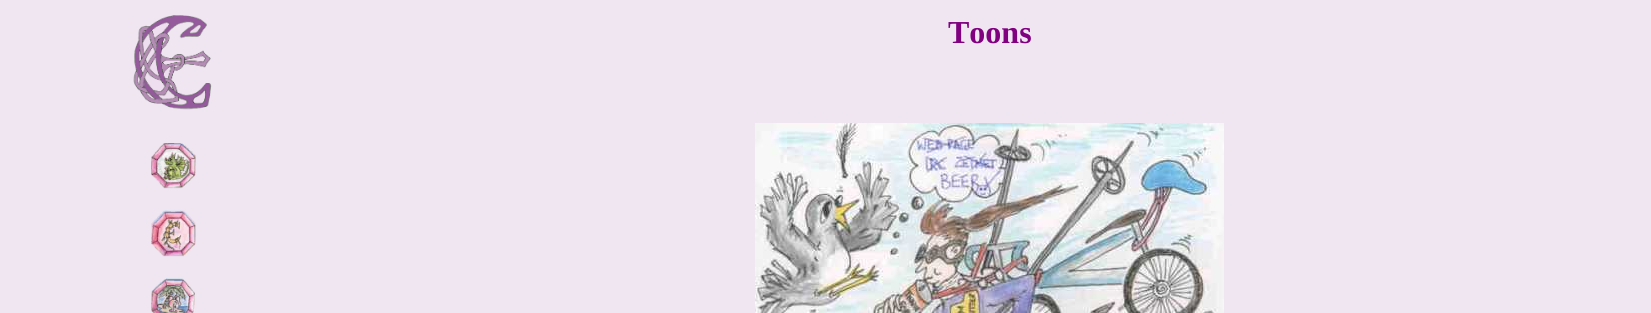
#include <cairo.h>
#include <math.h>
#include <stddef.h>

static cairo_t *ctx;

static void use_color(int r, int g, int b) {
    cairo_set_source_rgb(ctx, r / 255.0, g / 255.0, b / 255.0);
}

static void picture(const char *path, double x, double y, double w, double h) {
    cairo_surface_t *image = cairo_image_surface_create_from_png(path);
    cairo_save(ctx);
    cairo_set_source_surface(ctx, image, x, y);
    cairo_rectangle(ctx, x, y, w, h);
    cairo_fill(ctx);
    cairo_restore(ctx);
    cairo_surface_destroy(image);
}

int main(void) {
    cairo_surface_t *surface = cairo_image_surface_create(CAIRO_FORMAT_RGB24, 1651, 313);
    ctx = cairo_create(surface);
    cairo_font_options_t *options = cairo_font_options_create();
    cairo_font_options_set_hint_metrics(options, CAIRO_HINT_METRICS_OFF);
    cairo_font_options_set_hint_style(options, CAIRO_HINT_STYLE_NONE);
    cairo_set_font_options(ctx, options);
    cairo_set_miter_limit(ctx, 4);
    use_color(239, 230, 242);
    cairo_paint(ctx);
    picture("img1.png", 133, 15, 79, 95);
    cairo_select_font_face(ctx, "Liberation Serif", CAIRO_FONT_SLANT_NORMAL, CAIRO_FONT_WEIGHT_BOLD);
    cairo_set_font_size(ctx, 32);
    use_color(128, 0, 128);
    cairo_move_to(ctx, 948, 43);
    cairo_show_text(ctx, "Toons");
    picture("img2.png", 151, 143, 45, 46);
    picture("img3.png", 151, 210, 45, 47);
    picture("img4.png", 151, 278, 44, 35);
    picture("img5.png", 755, 123, 469, 190);
    cairo_surface_write_to_png(surface, "result.png");
    cairo_font_options_destroy(options);
    cairo_destroy(ctx);
    cairo_surface_destroy(surface);
    return 0;
}
